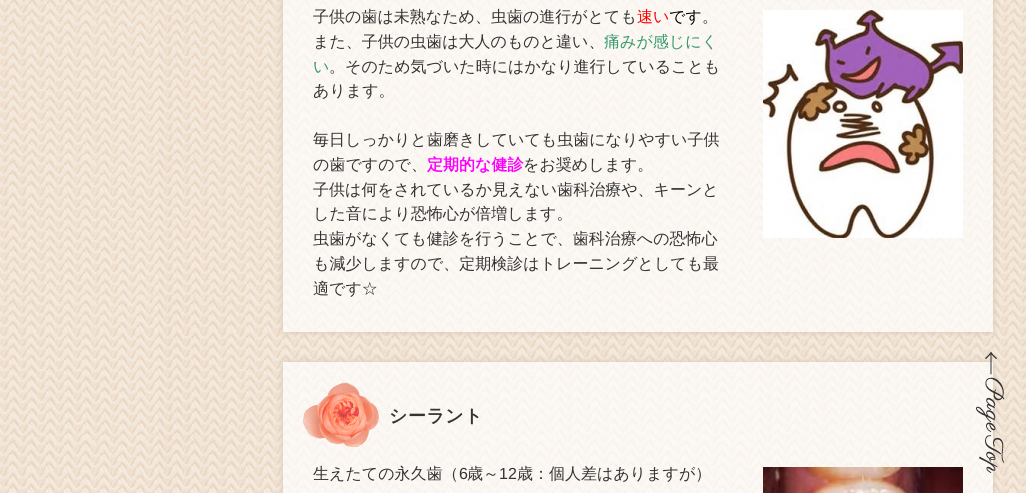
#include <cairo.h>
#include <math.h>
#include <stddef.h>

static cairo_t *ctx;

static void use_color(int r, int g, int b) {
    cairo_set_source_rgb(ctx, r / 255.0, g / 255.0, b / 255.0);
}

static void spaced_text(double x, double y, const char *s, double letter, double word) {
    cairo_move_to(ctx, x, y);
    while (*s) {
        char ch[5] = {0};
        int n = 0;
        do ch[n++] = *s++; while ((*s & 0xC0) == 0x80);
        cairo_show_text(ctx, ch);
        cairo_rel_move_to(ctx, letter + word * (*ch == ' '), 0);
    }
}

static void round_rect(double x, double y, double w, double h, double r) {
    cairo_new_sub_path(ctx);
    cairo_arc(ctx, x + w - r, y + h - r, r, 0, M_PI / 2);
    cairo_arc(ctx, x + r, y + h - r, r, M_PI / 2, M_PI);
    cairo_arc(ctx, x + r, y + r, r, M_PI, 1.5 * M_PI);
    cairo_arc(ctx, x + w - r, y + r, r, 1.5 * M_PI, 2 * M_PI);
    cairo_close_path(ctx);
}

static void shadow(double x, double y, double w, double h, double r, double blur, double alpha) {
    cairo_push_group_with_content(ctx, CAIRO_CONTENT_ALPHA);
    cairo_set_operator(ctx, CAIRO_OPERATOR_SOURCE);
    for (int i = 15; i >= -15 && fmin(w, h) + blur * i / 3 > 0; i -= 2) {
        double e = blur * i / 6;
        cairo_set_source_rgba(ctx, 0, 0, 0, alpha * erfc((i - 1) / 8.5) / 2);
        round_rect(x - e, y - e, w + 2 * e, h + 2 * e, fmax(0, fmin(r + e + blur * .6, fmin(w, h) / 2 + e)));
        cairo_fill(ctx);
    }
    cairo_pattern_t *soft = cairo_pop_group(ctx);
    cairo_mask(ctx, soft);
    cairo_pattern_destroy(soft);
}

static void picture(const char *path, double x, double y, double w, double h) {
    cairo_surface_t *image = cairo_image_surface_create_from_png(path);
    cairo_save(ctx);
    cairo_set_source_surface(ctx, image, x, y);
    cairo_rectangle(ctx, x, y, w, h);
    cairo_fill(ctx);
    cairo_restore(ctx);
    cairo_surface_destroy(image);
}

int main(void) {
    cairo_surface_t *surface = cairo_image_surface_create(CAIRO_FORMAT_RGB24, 1026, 493);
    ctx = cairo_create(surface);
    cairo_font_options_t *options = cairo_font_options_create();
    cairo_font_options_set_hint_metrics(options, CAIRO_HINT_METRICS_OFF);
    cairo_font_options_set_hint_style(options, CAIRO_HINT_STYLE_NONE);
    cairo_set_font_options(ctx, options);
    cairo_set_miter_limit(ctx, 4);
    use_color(255, 255, 255);
    cairo_paint(ctx);
    picture("img1.png", 0, 0, 1026, 493);
    cairo_save(ctx);
    cairo_set_fill_rule(ctx, CAIRO_FILL_RULE_EVEN_ODD);
    cairo_new_path(ctx);
    cairo_move_to(ctx, 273, 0);
    cairo_line_to(ctx, 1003, 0);
    cairo_line_to(ctx, 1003, 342);
    cairo_line_to(ctx, 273, 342);
    cairo_close_path(ctx);
    cairo_move_to(ctx, 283, -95);
    cairo_line_to(ctx, 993, -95);
    cairo_line_to(ctx, 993, 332);
    cairo_line_to(ctx, 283, 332);
    cairo_close_path(ctx);
    cairo_clip(ctx);
    use_color(208, 196, 179);
    shadow(283, -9, 710, 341, 0, 3, 1);
    cairo_restore(ctx);
    cairo_set_source_rgba(ctx, 1, 1, 1, 0.7);
    cairo_rectangle(ctx, 283, 0, 710, 332);
    cairo_fill(ctx);
    cairo_select_font_face(ctx, "WenQuanYi Zen Hei Medium", CAIRO_FONT_SLANT_NORMAL, CAIRO_FONT_WEIGHT_NORMAL);
    cairo_set_font_size(ctx, 16);
    use_color(51, 51, 51);
    cairo_move_to(ctx, 313, 22);
    cairo_show_text(ctx, "子供の歯は未熟なため、虫歯の進行がとても");
    use_color(255, 0, 0);
    cairo_move_to(ctx, 637, 22);
    cairo_show_text(ctx, "速い");
    use_color(0, 0, 0);
    cairo_move_to(ctx, 669, 22);
    cairo_show_text(ctx, "です");
    use_color(51, 51, 51);
    cairo_move_to(ctx, 702, 22);
    cairo_show_text(ctx, "。");
    cairo_move_to(ctx, 313, 47);
    cairo_show_text(ctx, "また、子供の虫歯は大人のものと違い、");
    use_color(51, 153, 102);
    cairo_move_to(ctx, 604, 47);
    cairo_show_text(ctx, "痛みが感じにく");
    cairo_move_to(ctx, 313, 72);
    cairo_show_text(ctx, "い");
    use_color(51, 51, 51);
    cairo_move_to(ctx, 329, 72);
    cairo_show_text(ctx, "。そのため気づいた時にはかなり進行していることも");
    cairo_move_to(ctx, 313, 96);
    cairo_show_text(ctx, "あります。");
    cairo_move_to(ctx, 313, 145);
    cairo_show_text(ctx, "毎日しっかりと歯磨きしていても虫歯になりやすい子供");
    cairo_move_to(ctx, 313, 170);
    cairo_show_text(ctx, "の歯ですので、");
    cairo_select_font_face(ctx, "WenQuanYi Zen Hei", CAIRO_FONT_SLANT_NORMAL, CAIRO_FONT_WEIGHT_BOLD);
    use_color(255, 0, 255);
    cairo_move_to(ctx, 427, 170);
    cairo_show_text(ctx, "定期的な健診");
    cairo_select_font_face(ctx, "WenQuanYi Zen Hei Medium", CAIRO_FONT_SLANT_NORMAL, CAIRO_FONT_WEIGHT_NORMAL);
    use_color(51, 51, 51);
    cairo_move_to(ctx, 523, 170);
    cairo_show_text(ctx, "をお奨めします。");
    cairo_move_to(ctx, 313, 195);
    cairo_show_text(ctx, "子供は何をされているか見えない歯科治療や、キーンと");
    cairo_move_to(ctx, 313, 219);
    cairo_show_text(ctx, "した音により恐怖心が倍増します。");
    cairo_move_to(ctx, 313, 244);
    cairo_show_text(ctx, "虫歯がなくても健診を行うことで、歯科治療への恐怖心");
    cairo_move_to(ctx, 313, 269);
    cairo_show_text(ctx, "も減少しますので、定期検診はトレーニングとしても最");
    cairo_move_to(ctx, 313, 294);
    cairo_show_text(ctx, "適です☆");
    picture("img2.png", 763, 10, 200, 228);
    cairo_save(ctx);
    cairo_set_fill_rule(ctx, CAIRO_FILL_RULE_EVEN_ODD);
    cairo_new_path(ctx);
    cairo_move_to(ctx, 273, 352);
    cairo_line_to(ctx, 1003, 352);
    cairo_line_to(ctx, 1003, 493);
    cairo_line_to(ctx, 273, 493);
    cairo_close_path(ctx);
    cairo_move_to(ctx, 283, 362);
    cairo_line_to(ctx, 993, 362);
    cairo_line_to(ctx, 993, 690);
    cairo_line_to(ctx, 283, 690);
    cairo_close_path(ctx);
    cairo_clip(ctx);
    use_color(208, 196, 179);
    shadow(283, 362, 710, 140, 0, 3, 1);
    cairo_restore(ctx);
    cairo_set_source_rgba(ctx, 1, 1, 1, 0.7);
    cairo_rectangle(ctx, 283, 362, 710, 131);
    cairo_fill(ctx);
    picture("img3.png", 303, 382, 76, 65);
    cairo_select_font_face(ctx, "WenQuanYi Zen Hei", CAIRO_FONT_SLANT_NORMAL, CAIRO_FONT_WEIGHT_BOLD);
    cairo_set_font_size(ctx, 18);
    use_color(51, 51, 51);
    spaced_text(389, 422, "シーラント", 0.5, 0);
    cairo_select_font_face(ctx, "WenQuanYi Zen Hei Medium", CAIRO_FONT_SLANT_NORMAL, CAIRO_FONT_WEIGHT_NORMAL);
    cairo_set_font_size(ctx, 16);
    cairo_move_to(ctx, 313, 479);
    cairo_show_text(ctx, "生えたての永久歯（");
    cairo_select_font_face(ctx, "Liberation Sans", CAIRO_FONT_SLANT_NORMAL, CAIRO_FONT_WEIGHT_NORMAL);
    cairo_move_to(ctx, 459, 479);
    cairo_show_text(ctx, "6");
    cairo_select_font_face(ctx, "WenQuanYi Zen Hei Medium", CAIRO_FONT_SLANT_NORMAL, CAIRO_FONT_WEIGHT_NORMAL);
    cairo_move_to(ctx, 467, 479);
    cairo_show_text(ctx, "歳～");
    cairo_select_font_face(ctx, "Liberation Sans", CAIRO_FONT_SLANT_NORMAL, CAIRO_FONT_WEIGHT_NORMAL);
    cairo_move_to(ctx, 499, 479);
    cairo_show_text(ctx, "12");
    cairo_select_font_face(ctx, "WenQuanYi Zen Hei Medium", CAIRO_FONT_SLANT_NORMAL, CAIRO_FONT_WEIGHT_NORMAL);
    cairo_move_to(ctx, 517, 479);
    cairo_show_text(ctx, "歳：個人差はありますが）");
    picture("img4.png", 763, 467, 200, 26);
    picture("img5.png", 976, 351, 29, 122);
    cairo_surface_write_to_png(surface, "result.png");
    cairo_font_options_destroy(options);
    cairo_destroy(ctx);
    cairo_surface_destroy(surface);
    return 0;
}
